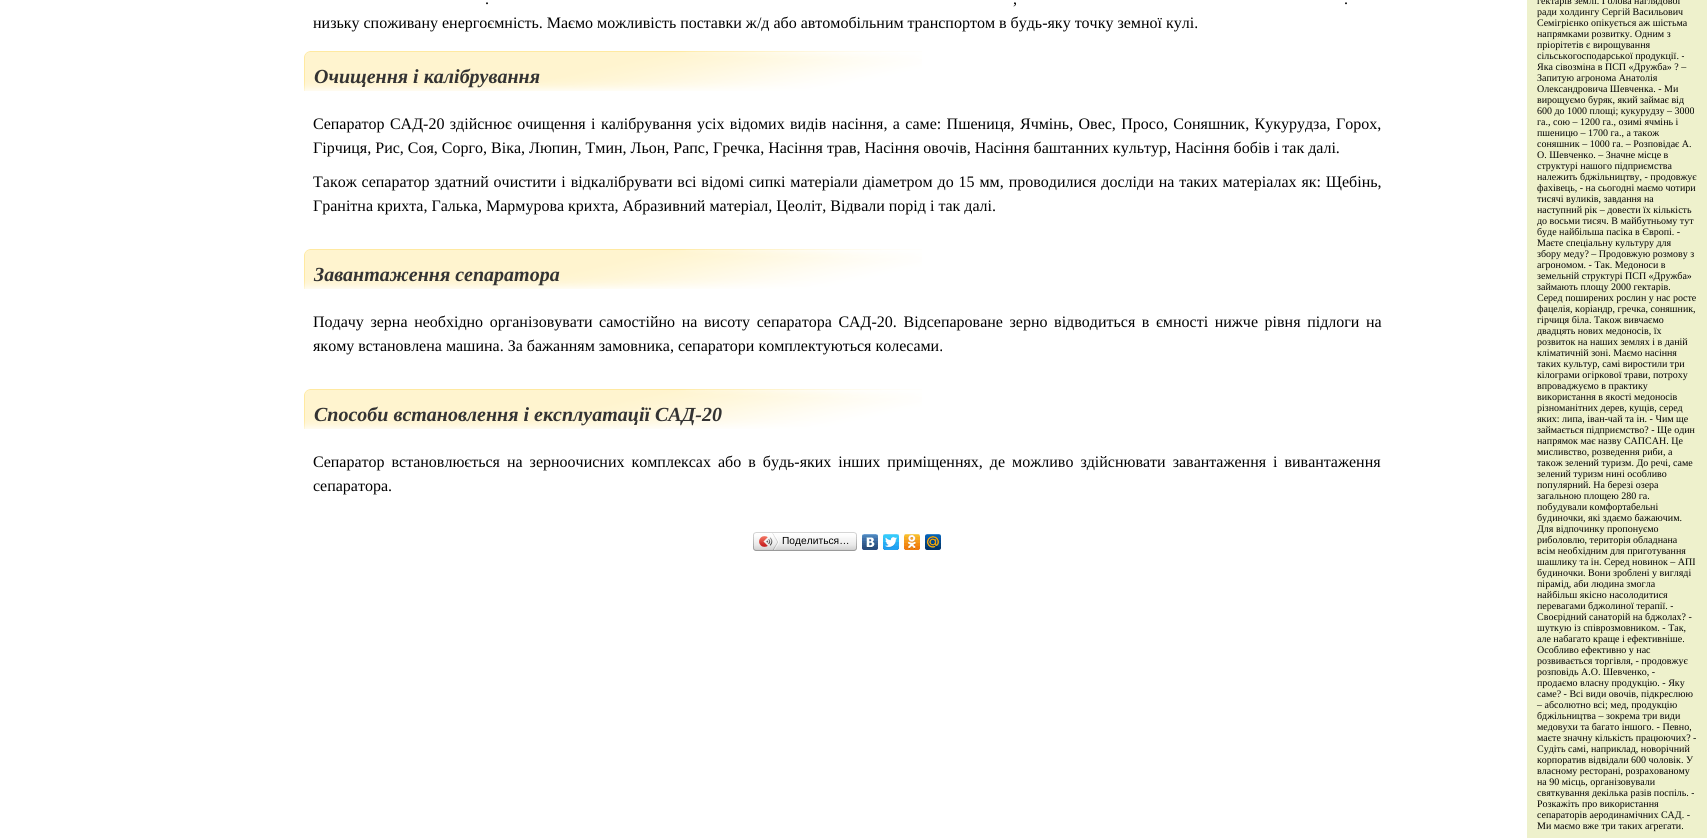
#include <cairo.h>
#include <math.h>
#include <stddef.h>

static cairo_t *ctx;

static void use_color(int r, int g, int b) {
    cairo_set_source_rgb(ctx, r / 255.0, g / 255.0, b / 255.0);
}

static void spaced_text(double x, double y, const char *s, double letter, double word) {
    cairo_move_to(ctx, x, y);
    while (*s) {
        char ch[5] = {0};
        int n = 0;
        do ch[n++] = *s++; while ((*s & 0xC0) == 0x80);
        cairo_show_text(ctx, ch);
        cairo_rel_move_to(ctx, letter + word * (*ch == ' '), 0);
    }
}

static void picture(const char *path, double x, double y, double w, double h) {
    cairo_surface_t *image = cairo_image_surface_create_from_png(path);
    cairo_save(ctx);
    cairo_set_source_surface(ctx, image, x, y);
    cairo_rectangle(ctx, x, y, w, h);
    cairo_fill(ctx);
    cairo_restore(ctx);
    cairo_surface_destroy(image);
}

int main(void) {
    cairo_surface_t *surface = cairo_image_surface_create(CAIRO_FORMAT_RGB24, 1707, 838);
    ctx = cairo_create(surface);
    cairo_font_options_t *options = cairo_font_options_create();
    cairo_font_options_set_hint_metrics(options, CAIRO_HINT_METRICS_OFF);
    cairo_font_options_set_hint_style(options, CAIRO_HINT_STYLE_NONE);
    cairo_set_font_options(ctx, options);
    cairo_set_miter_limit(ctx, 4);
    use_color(255, 255, 255);
    cairo_paint(ctx);
    cairo_select_font_face(ctx, "Liberation Serif", CAIRO_FONT_SLANT_NORMAL, CAIRO_FONT_WEIGHT_NORMAL);
    cairo_set_font_size(ctx, 16);
    use_color(0, 0, 0);
    cairo_move_to(ctx, 485, 4);
    cairo_show_text(ctx, ".");
    cairo_move_to(ctx, 1013, 4);
    cairo_show_text(ctx, ",");
    cairo_move_to(ctx, 1344, 4);
    cairo_show_text(ctx, ".");
    cairo_move_to(ctx, 313, 28);
    cairo_show_text(ctx, "низьку споживану енергоємність. Маємо можливість поставки ж/д або автомобільним транспортом в будь-яку точку земної кулі.");
    picture("img1.png", 304, 51, 618, 40);
    cairo_select_font_face(ctx, "Liberation Serif", CAIRO_FONT_SLANT_ITALIC, CAIRO_FONT_WEIGHT_BOLD);
    cairo_set_font_size(ctx, 20);
    use_color(51, 51, 51);
    cairo_move_to(ctx, 314, 83);
    cairo_show_text(ctx, "Очищення і калібрування");
    cairo_select_font_face(ctx, "Liberation Serif", CAIRO_FONT_SLANT_NORMAL, CAIRO_FONT_WEIGHT_NORMAL);
    cairo_set_font_size(ctx, 16);
    use_color(0, 0, 0);
    spaced_text(313, 129, "Сепаратор САД-20 здійснює очищення і калібрування усіх відомих видів насіння, а саме: Пшениця, Ячмінь, Овес, Просо, Соняшник, Кукурудза, Горох,", 0, 1.4);
    cairo_move_to(ctx, 313, 153);
    cairo_show_text(ctx, "Гірчиця, Рис, Соя, Сорго, Віка, Люпин, Тмин, Льон, Рапс, Гречка, Насіння трав, Насіння овочів, Насіння баштанних культур, Насіння бобів і так далі.");
    spaced_text(313, 187, "Також сепаратор здатний очистити і відкалібрувати всі відомі сипкі матеріали діаметром до 15 мм, проводилися досліди на таких матеріалах як: Щебінь,", 0, 0.9);
    cairo_move_to(ctx, 313, 211);
    cairo_show_text(ctx, "Гранітна крихта, Галька, Мармурова крихта, Абразивний матеріал, Цеоліт, Відвали порід і так далі.");
    picture("img1.png", 304, 249, 618, 40);
    cairo_select_font_face(ctx, "Liberation Serif", CAIRO_FONT_SLANT_ITALIC, CAIRO_FONT_WEIGHT_BOLD);
    cairo_set_font_size(ctx, 20);
    use_color(51, 51, 51);
    cairo_move_to(ctx, 314, 281);
    cairo_show_text(ctx, "Завантаження сепаратора");
    cairo_select_font_face(ctx, "Liberation Serif", CAIRO_FONT_SLANT_NORMAL, CAIRO_FONT_WEIGHT_NORMAL);
    cairo_set_font_size(ctx, 16);
    use_color(0, 0, 0);
    spaced_text(313, 327, "Подачу зерна необхідно організовувати самостійно на висоту сепаратора САД-20. Відсепароване зерно відводиться в ємності нижче рівня підлоги на", 0, 2.6);
    cairo_move_to(ctx, 313, 351);
    cairo_show_text(ctx, "якому встановлена машина. За бажанням замовника, сепаратори комплектуються колесами.");
    picture("img1.png", 304, 389, 618, 40);
    cairo_select_font_face(ctx, "Liberation Serif", CAIRO_FONT_SLANT_ITALIC, CAIRO_FONT_WEIGHT_BOLD);
    cairo_set_font_size(ctx, 20);
    use_color(51, 51, 51);
    cairo_move_to(ctx, 314, 421);
    cairo_show_text(ctx, "Способи встановлення і експлуатації САД-20");
    cairo_select_font_face(ctx, "Liberation Serif", CAIRO_FONT_SLANT_NORMAL, CAIRO_FONT_WEIGHT_NORMAL);
    cairo_set_font_size(ctx, 16);
    use_color(0, 0, 0);
    spaced_text(313, 467, "Сепаратор встановлюється на зерноочисних комплексах або в будь-яких інших приміщеннях, де можливо здійснювати завантаження і вивантаження", 0, 3);
    cairo_move_to(ctx, 313, 491);
    cairo_show_text(ctx, "сепаратора.");
    picture("img2.png", 756, 532, 98, 19);
    picture("img3.png", 753, 532, 3, 19);
    picture("img4.png", 759, 533, 20, 17);
    cairo_select_font_face(ctx, "Liberation Sans", CAIRO_FONT_SLANT_NORMAL, CAIRO_FONT_WEIGHT_NORMAL);
    cairo_set_font_size(ctx, 10.25);
    cairo_move_to(ctx, 782, 544);
    cairo_show_text(ctx, "Поделиться…");
    picture("img5.png", 854, 532, 3, 19);
    picture("img6.png", 862, 534, 16, 16);
    picture("img7.png", 883, 534, 16, 16);
    picture("img8.png", 904, 534, 16, 16);
    picture("img9.png", 925, 534, 16, 16);
    use_color(238, 241, 204);
    cairo_rectangle(ctx, 1527, 0, 180, 838);
    cairo_fill(ctx);
    cairo_select_font_face(ctx, "Liberation Serif", CAIRO_FONT_SLANT_NORMAL, CAIRO_FONT_WEIGHT_NORMAL);
    cairo_set_font_size(ctx, 10);
    use_color(0, 0, 0);
    cairo_move_to(ctx, 1537, 4);
    cairo_show_text(ctx, "гектарів землі. Голова наглядової");
    cairo_move_to(ctx, 1537, 15);
    cairo_show_text(ctx, "ради холдингу Сергій Васильович");
    cairo_move_to(ctx, 1537, 26);
    cairo_show_text(ctx, "Семігрієнко опікується аж шістьма");
    cairo_move_to(ctx, 1537, 37);
    cairo_show_text(ctx, "напрямками розвитку. Одним з");
    cairo_move_to(ctx, 1537, 48);
    cairo_show_text(ctx, "пріорітетів є вирощування");
    cairo_move_to(ctx, 1537, 59);
    cairo_show_text(ctx, "сільськогосподарської продукції. -");
    cairo_move_to(ctx, 1537, 70);
    cairo_show_text(ctx, "Яка сівозміна в ПСП «Дружба» ? –");
    cairo_move_to(ctx, 1537, 81);
    cairo_show_text(ctx, "Запитую агронома Анатолія");
    cairo_move_to(ctx, 1537, 92);
    cairo_show_text(ctx, "Олександровича Шевченка. - Ми");
    cairo_move_to(ctx, 1537, 103);
    cairo_show_text(ctx, "вирощуємо буряк, який займає від");
    cairo_move_to(ctx, 1537, 114);
    cairo_show_text(ctx, "600 до 1000 площі; кукурудзу – 3000");
    cairo_move_to(ctx, 1537, 125);
    cairo_show_text(ctx, "га., сою – 1200 га., озимі ячмінь і");
    cairo_move_to(ctx, 1537, 136);
    cairo_show_text(ctx, "пшеницю – 1700 га., а також");
    cairo_move_to(ctx, 1537, 147);
    cairo_show_text(ctx, "соняшник – 1000 га. – Розповідає А.");
    cairo_move_to(ctx, 1537, 158);
    cairo_show_text(ctx, "О. Шевченко. – Значне місце в");
    cairo_move_to(ctx, 1537, 169);
    cairo_show_text(ctx, "структурі нашого підприємства");
    cairo_move_to(ctx, 1537, 180);
    cairo_show_text(ctx, "належить бджільництву, - продовжує");
    cairo_move_to(ctx, 1537, 191);
    cairo_show_text(ctx, "фахівець, - на сьогодні маємо чотири");
    cairo_move_to(ctx, 1537, 202);
    cairo_show_text(ctx, "тисячі вуликів, завдання на");
    cairo_move_to(ctx, 1537, 213);
    cairo_show_text(ctx, "наступний рік – довести їх кількість");
    cairo_move_to(ctx, 1537, 224);
    cairo_show_text(ctx, "до восьми тисяч. В майбутньому тут");
    cairo_move_to(ctx, 1537, 235);
    cairo_show_text(ctx, "буде найбільша пасіка в Європі. -");
    cairo_move_to(ctx, 1537, 246);
    cairo_show_text(ctx, "Маєте спеціальну культуру для");
    cairo_move_to(ctx, 1537, 257);
    cairo_show_text(ctx, "збору меду? – Продовжую розмову з");
    cairo_move_to(ctx, 1537, 268);
    cairo_show_text(ctx, "агрономом. - Так. Медоноси в");
    cairo_move_to(ctx, 1537, 279);
    cairo_show_text(ctx, "земельній структурі ПСП «Дружба»");
    cairo_move_to(ctx, 1537, 290);
    cairo_show_text(ctx, "займають площу 2000 гектарів.");
    cairo_move_to(ctx, 1537, 301);
    cairo_show_text(ctx, "Серед поширених рослин у нас росте");
    cairo_move_to(ctx, 1537, 312);
    cairo_show_text(ctx, "фацелія, коріандр, гречка, соняшник,");
    cairo_move_to(ctx, 1537, 323);
    cairo_show_text(ctx, "гірчиця біла. Також вивчаємо");
    cairo_move_to(ctx, 1537, 334);
    cairo_show_text(ctx, "двадцять нових медоносів, їх");
    cairo_move_to(ctx, 1537, 345);
    cairo_show_text(ctx, "розвиток на наших землях і в даній");
    cairo_move_to(ctx, 1537, 356);
    cairo_show_text(ctx, "кліматичній зоні. Маємо насіння");
    cairo_move_to(ctx, 1537, 367);
    cairo_show_text(ctx, "таких культур, самі виростили три");
    cairo_move_to(ctx, 1537, 378);
    cairo_show_text(ctx, "кілограми огіркової трави, потроху");
    cairo_move_to(ctx, 1537, 389);
    cairo_show_text(ctx, "впроваджуємо в практику");
    cairo_move_to(ctx, 1537, 400);
    cairo_show_text(ctx, "використання в якості медоносів");
    cairo_move_to(ctx, 1537, 411);
    cairo_show_text(ctx, "різноманітних дерев, кущів, серед");
    cairo_move_to(ctx, 1537, 422);
    cairo_show_text(ctx, "яких: липа, іван-чай та ін. - Чим ще");
    cairo_move_to(ctx, 1537, 433);
    cairo_show_text(ctx, "займається підприємство? - Ще один");
    cairo_move_to(ctx, 1537, 444);
    cairo_show_text(ctx, "напрямок має назву САПСАН. Це");
    cairo_move_to(ctx, 1537, 455);
    cairo_show_text(ctx, "мисливство, розведення риби, а");
    cairo_move_to(ctx, 1537, 466);
    cairo_show_text(ctx, "також зелений туризм. До речі, саме");
    cairo_move_to(ctx, 1537, 477);
    cairo_show_text(ctx, "зелений туризм нині особливо");
    cairo_move_to(ctx, 1537, 488);
    cairo_show_text(ctx, "популярний. На березі озера");
    cairo_move_to(ctx, 1537, 499);
    cairo_show_text(ctx, "загальною площею 280 га.");
    cairo_move_to(ctx, 1537, 510);
    cairo_show_text(ctx, "побудували комфортабельні");
    cairo_move_to(ctx, 1537, 521);
    cairo_show_text(ctx, "будиночки, які здаємо бажаючим.");
    cairo_move_to(ctx, 1537, 532);
    cairo_show_text(ctx, "Для відпочинку пропонуємо");
    cairo_move_to(ctx, 1537, 543);
    cairo_show_text(ctx, "риболовлю, територія обладнана");
    cairo_move_to(ctx, 1537, 554);
    cairo_show_text(ctx, "всім необхідним для приготування");
    cairo_move_to(ctx, 1537, 565);
    cairo_show_text(ctx, "шашлику та ін. Серед новинок – АПІ");
    cairo_move_to(ctx, 1537, 576);
    cairo_show_text(ctx, "будиночки. Вони зроблені у вигляді");
    cairo_move_to(ctx, 1537, 587);
    cairo_show_text(ctx, "пірамід, аби людина змогла");
    cairo_move_to(ctx, 1537, 598);
    cairo_show_text(ctx, "найбільш якісно насолодитися");
    cairo_move_to(ctx, 1537, 609);
    cairo_show_text(ctx, "перевагами бджолиної терапії. -");
    cairo_move_to(ctx, 1537, 620);
    cairo_show_text(ctx, "Своєрідний санаторій на бджолах? -");
    cairo_move_to(ctx, 1537, 631);
    cairo_show_text(ctx, "шуткую із співрозмовником. - Так,");
    cairo_move_to(ctx, 1537, 642);
    cairo_show_text(ctx, "але набагато краще і ефективніше.");
    cairo_move_to(ctx, 1537, 653);
    cairo_show_text(ctx, "Особливо ефективно у нас");
    cairo_move_to(ctx, 1537, 664);
    cairo_show_text(ctx, "розвивається торгівля, - продовжує");
    cairo_move_to(ctx, 1537, 675);
    cairo_show_text(ctx, "розповідь А.О. Шевченко, -");
    cairo_move_to(ctx, 1537, 686);
    cairo_show_text(ctx, "продаємо власну продукцію. - Яку");
    cairo_move_to(ctx, 1537, 697);
    cairo_show_text(ctx, "саме? - Всі види овочів, підкреслюю");
    cairo_move_to(ctx, 1537, 708);
    cairo_show_text(ctx, "– абсолютно всі; мед, продукцію");
    cairo_move_to(ctx, 1537, 719);
    cairo_show_text(ctx, "бджільництва – зокрема три види");
    cairo_move_to(ctx, 1537, 730);
    cairo_show_text(ctx, "медовухи та багато іншого. - Певно,");
    cairo_move_to(ctx, 1537, 741);
    cairo_show_text(ctx, "маєте значну кількість працюючих? -");
    cairo_move_to(ctx, 1537, 752);
    cairo_show_text(ctx, "Судіть самі, наприклад, новорічний");
    cairo_move_to(ctx, 1537, 763);
    cairo_show_text(ctx, "корпоратив відвідали 600 чоловік. У");
    cairo_move_to(ctx, 1537, 774);
    cairo_show_text(ctx, "власному ресторані, розрахованому");
    cairo_move_to(ctx, 1537, 785);
    cairo_show_text(ctx, "на 90 місць, організовували");
    cairo_move_to(ctx, 1537, 796);
    cairo_show_text(ctx, "святкування декілька разів поспіль. -");
    cairo_move_to(ctx, 1537, 807);
    cairo_show_text(ctx, "Розкажіть про використання");
    cairo_move_to(ctx, 1537, 818);
    cairo_show_text(ctx, "сепараторів аеродинамічних САД. -");
    cairo_move_to(ctx, 1537, 829);
    cairo_show_text(ctx, "Ми маємо вже три таких агрегати.");
    cairo_surface_write_to_png(surface, "result.png");
    cairo_font_options_destroy(options);
    cairo_destroy(ctx);
    cairo_surface_destroy(surface);
    return 0;
}
